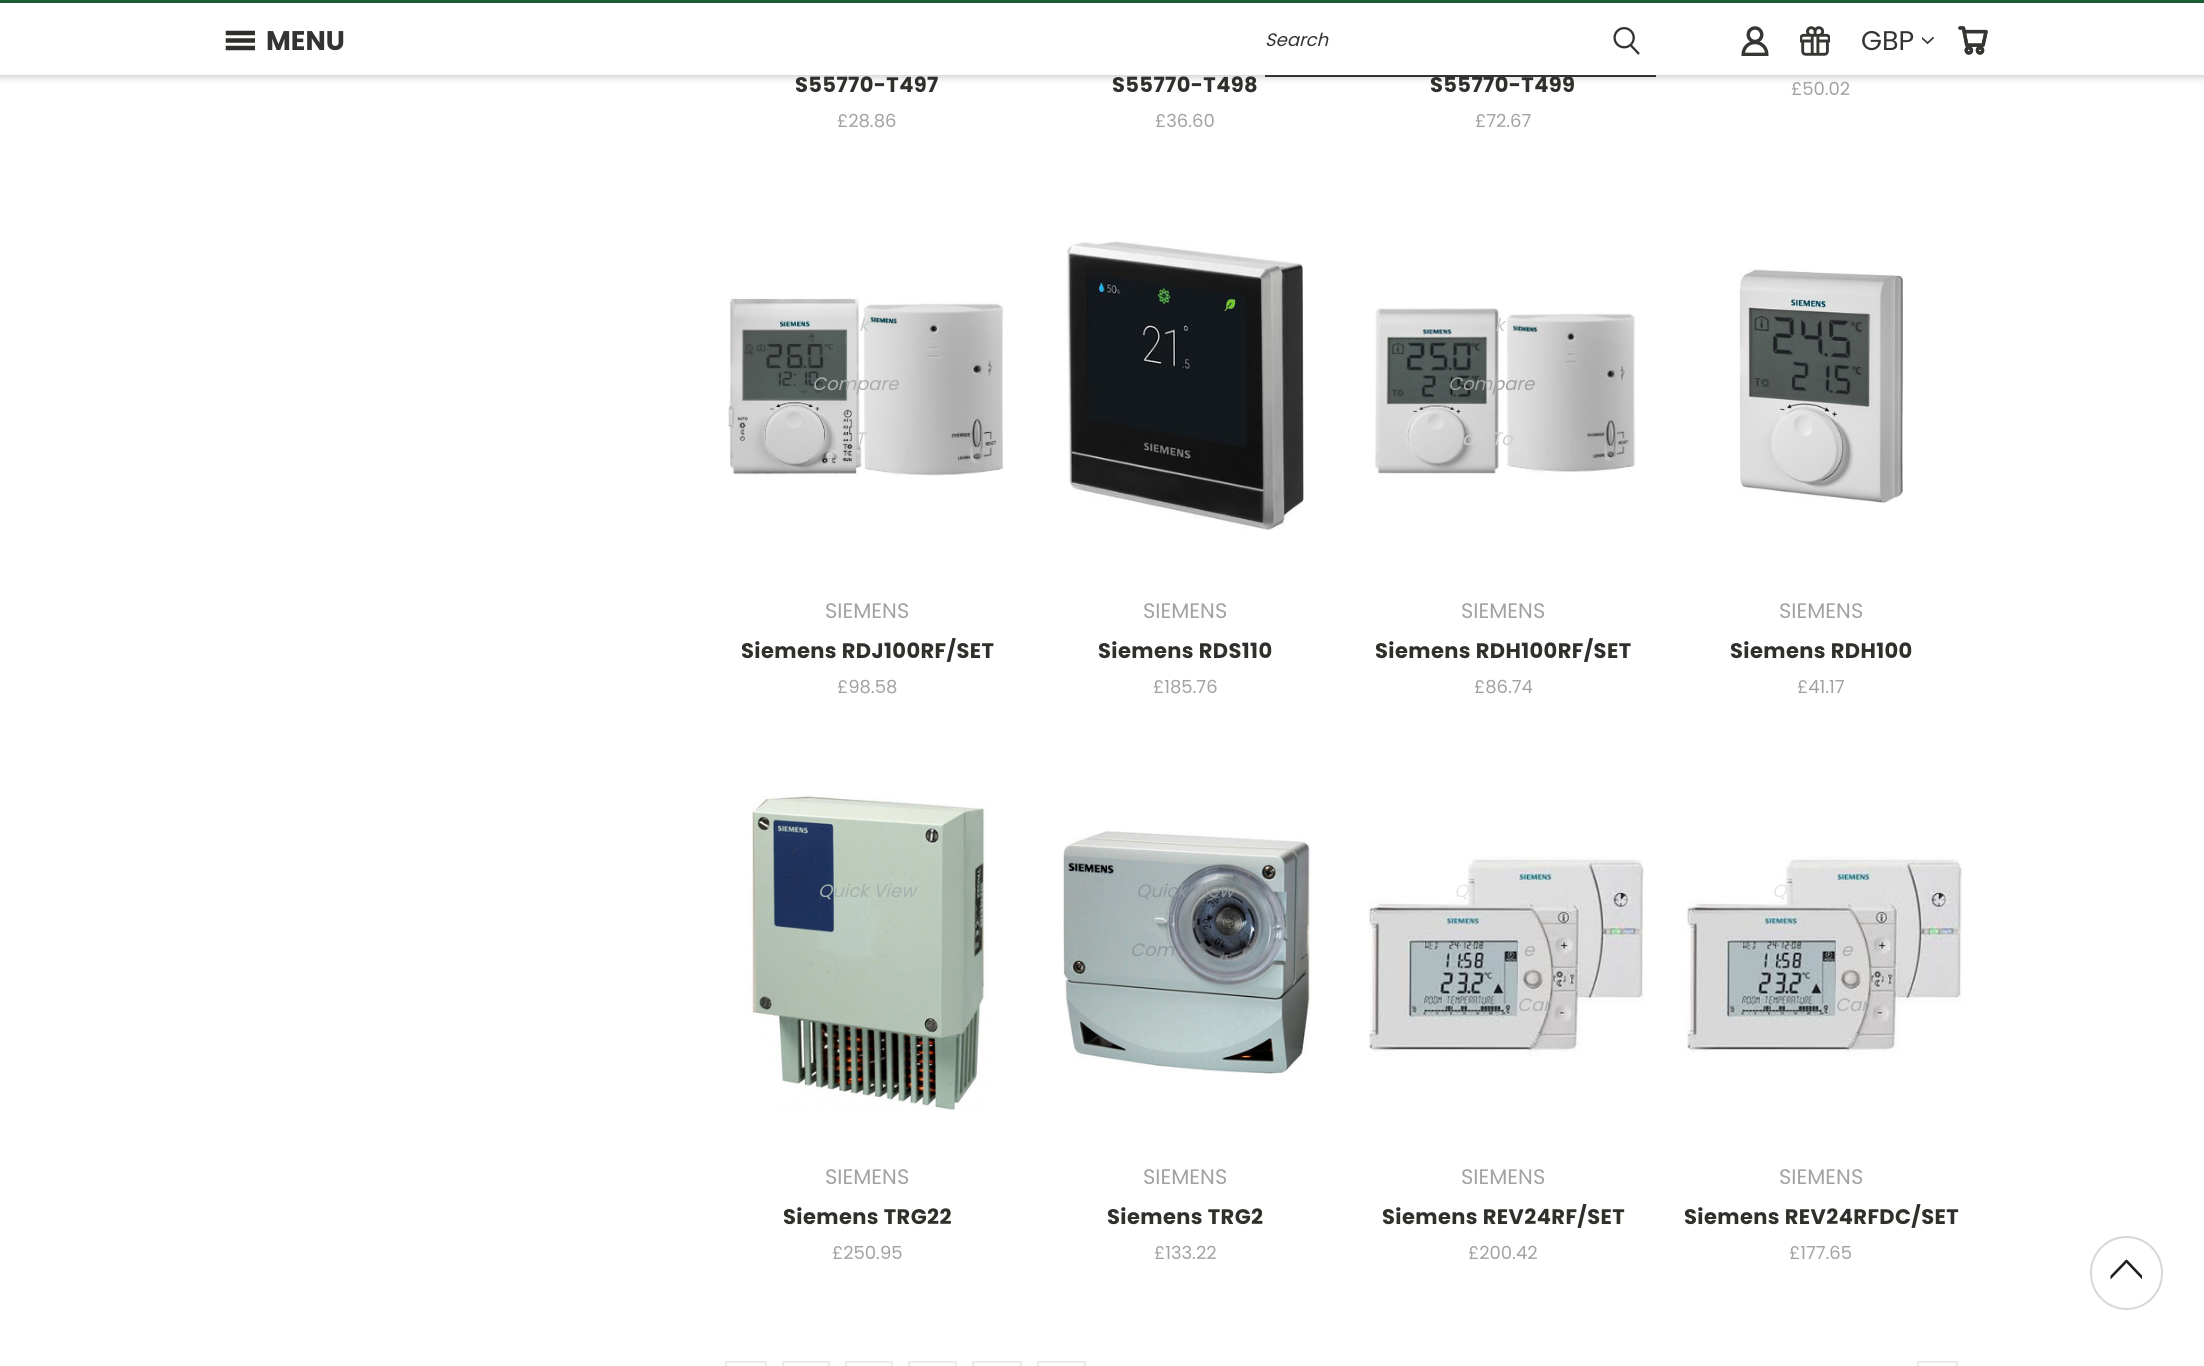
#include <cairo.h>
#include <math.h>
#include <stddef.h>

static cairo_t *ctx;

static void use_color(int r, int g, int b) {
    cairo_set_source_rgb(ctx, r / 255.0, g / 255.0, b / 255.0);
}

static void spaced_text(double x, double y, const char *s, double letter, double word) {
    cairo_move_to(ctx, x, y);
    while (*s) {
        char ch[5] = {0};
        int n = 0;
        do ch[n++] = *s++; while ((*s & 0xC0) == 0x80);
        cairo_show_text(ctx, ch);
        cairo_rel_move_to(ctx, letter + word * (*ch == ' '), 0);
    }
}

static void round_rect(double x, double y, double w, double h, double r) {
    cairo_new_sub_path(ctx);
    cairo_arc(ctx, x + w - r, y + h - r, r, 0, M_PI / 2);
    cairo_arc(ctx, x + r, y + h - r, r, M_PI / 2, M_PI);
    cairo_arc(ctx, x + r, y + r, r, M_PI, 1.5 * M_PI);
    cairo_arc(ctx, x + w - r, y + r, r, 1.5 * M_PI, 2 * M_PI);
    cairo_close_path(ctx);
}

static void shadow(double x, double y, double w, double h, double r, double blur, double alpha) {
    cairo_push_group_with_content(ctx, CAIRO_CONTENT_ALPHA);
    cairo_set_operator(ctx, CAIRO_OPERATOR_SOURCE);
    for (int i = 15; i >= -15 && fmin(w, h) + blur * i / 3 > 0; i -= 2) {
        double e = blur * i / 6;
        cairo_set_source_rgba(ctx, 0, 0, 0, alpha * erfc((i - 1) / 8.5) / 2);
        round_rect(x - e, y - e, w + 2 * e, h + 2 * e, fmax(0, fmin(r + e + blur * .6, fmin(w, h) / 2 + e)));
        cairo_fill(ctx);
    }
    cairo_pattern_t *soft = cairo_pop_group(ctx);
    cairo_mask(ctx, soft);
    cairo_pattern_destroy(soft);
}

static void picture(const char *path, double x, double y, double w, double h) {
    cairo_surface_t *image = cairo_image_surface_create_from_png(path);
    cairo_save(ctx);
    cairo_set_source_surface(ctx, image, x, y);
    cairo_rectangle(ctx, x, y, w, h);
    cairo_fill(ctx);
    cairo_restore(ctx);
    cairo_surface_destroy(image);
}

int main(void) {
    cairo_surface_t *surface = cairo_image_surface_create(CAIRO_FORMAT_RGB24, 2204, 1366);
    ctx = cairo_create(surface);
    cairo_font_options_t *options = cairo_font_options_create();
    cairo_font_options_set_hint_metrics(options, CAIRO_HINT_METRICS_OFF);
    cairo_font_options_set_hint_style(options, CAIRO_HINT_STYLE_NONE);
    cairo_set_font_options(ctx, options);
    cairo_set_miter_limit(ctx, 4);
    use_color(255, 255, 255);
    cairo_paint(ctx);
    use_color(0, 0, 0);
    shadow(0, 0, 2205, 75, 0, 5, 0.3);
    use_color(255, 255, 255);
    cairo_rectangle(ctx, 0, 3, 2204, 72);
    cairo_fill(ctx);
    use_color(24, 93, 52);
    cairo_rectangle(ctx, 0, 0, 2204, 3);
    cairo_fill(ctx);
    picture("img1.png", 225, 30, 30, 21);
    cairo_select_font_face(ctx, "Poppins", CAIRO_FONT_SLANT_NORMAL, CAIRO_FONT_WEIGHT_BOLD);
    cairo_set_font_size(ctx, 27);
    use_color(51, 51, 51);
    cairo_move_to(ctx, 266, 50);
    cairo_show_text(ctx, "MENU");
    cairo_set_font_size(ctx, 21);
    use_color(47, 47, 43);
    spaced_text(1430, 92, "S55770-T499", 0.4, 0);
    use_color(51, 51, 51);
    cairo_rectangle(ctx, 1265, 75, 391, 2);
    cairo_fill(ctx);
    cairo_select_font_face(ctx, "Poppins", CAIRO_FONT_SLANT_ITALIC, CAIRO_FONT_WEIGHT_NORMAL);
    cairo_set_font_size(ctx, 18);
    cairo_move_to(ctx, 1265, 46);
    cairo_show_text(ctx, "Search");
    picture("img2.png", 1613, 27, 27, 28);
    picture("img3.png", 1741, 26, 28, 30);
    picture("img4.png", 1800, 26, 30, 30);
    cairo_select_font_face(ctx, "Poppins", CAIRO_FONT_SLANT_NORMAL, CAIRO_FONT_WEIGHT_NORMAL);
    cairo_set_font_size(ctx, 27);
    cairo_move_to(ctx, 1861, 50);
    cairo_show_text(ctx, "GBP");
    picture("img5.png", 1922, 36, 12, 9);
    picture("img6.png", 1958, 26, 30, 29);
    cairo_select_font_face(ctx, "Poppins", CAIRO_FONT_SLANT_NORMAL, CAIRO_FONT_WEIGHT_BOLD);
    cairo_set_font_size(ctx, 21);
    use_color(47, 47, 43);
    spaced_text(795, 92, "S55770-T497", 0.4, 0);
    cairo_select_font_face(ctx, "Poppins", CAIRO_FONT_SLANT_NORMAL, CAIRO_FONT_WEIGHT_NORMAL);
    cairo_set_font_size(ctx, 18);
    use_color(162, 162, 162);
    cairo_move_to(ctx, 837, 127);
    cairo_show_text(ctx, "£28.86");
    cairo_select_font_face(ctx, "Poppins", CAIRO_FONT_SLANT_NORMAL, CAIRO_FONT_WEIGHT_BOLD);
    cairo_set_font_size(ctx, 21);
    use_color(47, 47, 43);
    spaced_text(1112, 92, "S55770-T498", 0.4, 0);
    cairo_select_font_face(ctx, "Poppins", CAIRO_FONT_SLANT_NORMAL, CAIRO_FONT_WEIGHT_NORMAL);
    cairo_set_font_size(ctx, 18);
    use_color(162, 162, 162);
    cairo_move_to(ctx, 1155, 127);
    cairo_show_text(ctx, "£36.60");
    cairo_move_to(ctx, 1475, 127);
    cairo_show_text(ctx, "£72.67");
    cairo_move_to(ctx, 1791, 95);
    cairo_show_text(ctx, "£50.02");
    picture("img7.png", 727, 298, 277, 178);
    cairo_select_font_face(ctx, "Poppins", CAIRO_FONT_SLANT_ITALIC, CAIRO_FONT_WEIGHT_NORMAL);
    use_color(201, 204, 204);
    cairo_move_to(ctx, 859, 331);
    cairo_show_text(ctx, "k");
    use_color(171, 174, 173);
    cairo_move_to(ctx, 812, 390);
    cairo_show_text(ctx, "Compare");
    use_color(201, 204, 204);
    cairo_move_to(ctx, 855, 445);
    cairo_show_text(ctx, "T");
    cairo_select_font_face(ctx, "Poppins", CAIRO_FONT_SLANT_NORMAL, CAIRO_FONT_WEIGHT_NORMAL);
    cairo_set_font_size(ctx, 21);
    use_color(162, 162, 162);
    cairo_move_to(ctx, 825, 618);
    cairo_show_text(ctx, "SIEMENS");
    cairo_select_font_face(ctx, "Poppins", CAIRO_FONT_SLANT_NORMAL, CAIRO_FONT_WEIGHT_BOLD);
    use_color(47, 47, 43);
    spaced_text(741, 658, "Siemens RDJ100RF/SET", 0.4, 0);
    cairo_select_font_face(ctx, "Poppins", CAIRO_FONT_SLANT_NORMAL, CAIRO_FONT_WEIGHT_NORMAL);
    cairo_set_font_size(ctx, 18);
    use_color(162, 162, 162);
    cairo_move_to(ctx, 837, 693);
    cairo_show_text(ctx, "£98.58");
    picture("img8.png", 1067, 241, 238, 289);
    cairo_set_font_size(ctx, 21);
    cairo_move_to(ctx, 1143, 618);
    cairo_show_text(ctx, "SIEMENS");
    cairo_select_font_face(ctx, "Poppins", CAIRO_FONT_SLANT_NORMAL, CAIRO_FONT_WEIGHT_BOLD);
    use_color(47, 47, 43);
    spaced_text(1098, 658, "Siemens RDS110", 0.4, 0);
    cairo_select_font_face(ctx, "Poppins", CAIRO_FONT_SLANT_NORMAL, CAIRO_FONT_WEIGHT_NORMAL);
    cairo_set_font_size(ctx, 18);
    use_color(162, 162, 162);
    cairo_move_to(ctx, 1153, 693);
    cairo_show_text(ctx, "£185.76");
    picture("img9.png", 1375, 308, 261, 167);
    cairo_select_font_face(ctx, "Poppins", CAIRO_FONT_SLANT_ITALIC, CAIRO_FONT_WEIGHT_NORMAL);
    use_color(201, 204, 204);
    cairo_move_to(ctx, 1495, 331);
    cairo_show_text(ctx, "k");
    use_color(162, 162, 162);
    cairo_move_to(ctx, 1448, 390);
    cairo_show_text(ctx, "Compare");
    use_color(207, 207, 207);
    cairo_move_to(ctx, 1462, 445);
    cairo_show_text(ctx, "dd To");
    cairo_select_font_face(ctx, "Poppins", CAIRO_FONT_SLANT_NORMAL, CAIRO_FONT_WEIGHT_NORMAL);
    cairo_set_font_size(ctx, 21);
    use_color(162, 162, 162);
    cairo_move_to(ctx, 1461, 618);
    cairo_show_text(ctx, "SIEMENS");
    cairo_select_font_face(ctx, "Poppins", CAIRO_FONT_SLANT_NORMAL, CAIRO_FONT_WEIGHT_BOLD);
    use_color(47, 47, 43);
    spaced_text(1375, 658, "Siemens RDH100RF/SET", 0.4, 0);
    cairo_select_font_face(ctx, "Poppins", CAIRO_FONT_SLANT_NORMAL, CAIRO_FONT_WEIGHT_NORMAL);
    cairo_set_font_size(ctx, 18);
    use_color(162, 162, 162);
    cairo_move_to(ctx, 1474, 693);
    cairo_show_text(ctx, "£86.74");
    picture("img10.png", 1739, 268, 164, 235);
    cairo_set_font_size(ctx, 21);
    cairo_move_to(ctx, 1779, 618);
    cairo_show_text(ctx, "SIEMENS");
    cairo_select_font_face(ctx, "Poppins", CAIRO_FONT_SLANT_NORMAL, CAIRO_FONT_WEIGHT_BOLD);
    use_color(47, 47, 43);
    spaced_text(1730, 658, "Siemens RDH100", 0.4, 0);
    cairo_select_font_face(ctx, "Poppins", CAIRO_FONT_SLANT_NORMAL, CAIRO_FONT_WEIGHT_NORMAL);
    cairo_set_font_size(ctx, 18);
    use_color(162, 162, 162);
    cairo_move_to(ctx, 1797, 693);
    cairo_show_text(ctx, "£41.17");
    picture("img11.png", 750, 795, 238, 315);
    cairo_select_font_face(ctx, "Poppins", CAIRO_FONT_SLANT_ITALIC, CAIRO_FONT_WEIGHT_NORMAL);
    use_color(162, 177, 173);
    cairo_move_to(ctx, 818, 897);
    cairo_show_text(ctx, "Quick View");
    cairo_select_font_face(ctx, "Poppins", CAIRO_FONT_SLANT_NORMAL, CAIRO_FONT_WEIGHT_NORMAL);
    cairo_set_font_size(ctx, 21);
    use_color(162, 162, 162);
    cairo_move_to(ctx, 825, 1184);
    cairo_show_text(ctx, "SIEMENS");
    cairo_select_font_face(ctx, "Poppins", CAIRO_FONT_SLANT_NORMAL, CAIRO_FONT_WEIGHT_BOLD);
    use_color(47, 47, 43);
    spaced_text(783, 1224, "Siemens TRG22", 0.4, 0);
    cairo_select_font_face(ctx, "Poppins", CAIRO_FONT_SLANT_NORMAL, CAIRO_FONT_WEIGHT_NORMAL);
    cairo_set_font_size(ctx, 18);
    use_color(162, 162, 162);
    cairo_move_to(ctx, 832, 1259);
    cairo_show_text(ctx, "£250.95");
    picture("img12.png", 1063, 831, 249, 243);
    cairo_select_font_face(ctx, "Poppins", CAIRO_FONT_SLANT_ITALIC, CAIRO_FONT_WEIGHT_NORMAL);
    use_color(144, 152, 156);
    cairo_move_to(ctx, 1136, 897);
    cairo_show_text(ctx, "Quick View");
    cairo_move_to(ctx, 1130, 956);
    cairo_show_text(ctx, "Com");
    cairo_select_font_face(ctx, "Poppins", CAIRO_FONT_SLANT_NORMAL, CAIRO_FONT_WEIGHT_NORMAL);
    cairo_set_font_size(ctx, 21);
    use_color(162, 162, 162);
    cairo_move_to(ctx, 1143, 1184);
    cairo_show_text(ctx, "SIEMENS");
    cairo_select_font_face(ctx, "Poppins", CAIRO_FONT_SLANT_NORMAL, CAIRO_FONT_WEIGHT_BOLD);
    use_color(47, 47, 43);
    spaced_text(1107, 1224, "Siemens TRG2", 0.4, 0);
    cairo_select_font_face(ctx, "Poppins", CAIRO_FONT_SLANT_NORMAL, CAIRO_FONT_WEIGHT_NORMAL);
    cairo_set_font_size(ctx, 18);
    use_color(162, 162, 162);
    cairo_move_to(ctx, 1154, 1259);
    cairo_show_text(ctx, "£133.22");
    picture("img13.png", 1368, 856, 277, 200);
    cairo_select_font_face(ctx, "Poppins", CAIRO_FONT_SLANT_ITALIC, CAIRO_FONT_WEIGHT_NORMAL);
    use_color(228, 229, 229);
    cairo_move_to(ctx, 1454, 897);
    cairo_show_text(ctx, "Q");
    use_color(171, 174, 173);
    cairo_move_to(ctx, 1523, 956);
    cairo_show_text(ctx, "e");
    use_color(172, 178, 179);
    cairo_move_to(ctx, 1517, 1011);
    cairo_show_text(ctx, "Car");
    cairo_select_font_face(ctx, "Poppins", CAIRO_FONT_SLANT_NORMAL, CAIRO_FONT_WEIGHT_NORMAL);
    cairo_set_font_size(ctx, 21);
    use_color(162, 162, 162);
    cairo_move_to(ctx, 1461, 1184);
    cairo_show_text(ctx, "SIEMENS");
    cairo_select_font_face(ctx, "Poppins", CAIRO_FONT_SLANT_NORMAL, CAIRO_FONT_WEIGHT_BOLD);
    use_color(47, 47, 43);
    spaced_text(1382, 1224, "Siemens REV24RF/SET", 0.4, 0);
    cairo_select_font_face(ctx, "Poppins", CAIRO_FONT_SLANT_NORMAL, CAIRO_FONT_WEIGHT_NORMAL);
    cairo_set_font_size(ctx, 18);
    use_color(162, 162, 162);
    cairo_move_to(ctx, 1468, 1259);
    cairo_show_text(ctx, "£200.42");
    picture("img13.png", 1686, 856, 277, 200);
    cairo_select_font_face(ctx, "Poppins", CAIRO_FONT_SLANT_ITALIC, CAIRO_FONT_WEIGHT_NORMAL);
    use_color(228, 229, 229);
    cairo_move_to(ctx, 1772, 897);
    cairo_show_text(ctx, "Q");
    use_color(171, 174, 173);
    cairo_move_to(ctx, 1841, 956);
    cairo_show_text(ctx, "e");
    use_color(172, 178, 179);
    cairo_move_to(ctx, 1835, 1011);
    cairo_show_text(ctx, "Car");
    cairo_select_font_face(ctx, "Poppins", CAIRO_FONT_SLANT_NORMAL, CAIRO_FONT_WEIGHT_NORMAL);
    cairo_set_font_size(ctx, 21);
    use_color(162, 162, 162);
    cairo_move_to(ctx, 1779, 1184);
    cairo_show_text(ctx, "SIEMENS");
    cairo_select_font_face(ctx, "Poppins", CAIRO_FONT_SLANT_NORMAL, CAIRO_FONT_WEIGHT_BOLD);
    use_color(47, 47, 43);
    spaced_text(1684, 1224, "Siemens REV24RFDC/SET", 0.4, 0);
    cairo_select_font_face(ctx, "Poppins", CAIRO_FONT_SLANT_NORMAL, CAIRO_FONT_WEIGHT_NORMAL);
    cairo_set_font_size(ctx, 18);
    use_color(162, 162, 162);
    cairo_move_to(ctx, 1789, 1259);
    cairo_show_text(ctx, "£177.65");
    cairo_rectangle(ctx, 726, 1362, 40, 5);
    use_color(235, 235, 235);
    cairo_stroke(ctx);
    cairo_rectangle(ctx, 783, 1362, 46, 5);
    cairo_stroke(ctx);
    cairo_rectangle(ctx, 846, 1362, 46, 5);
    cairo_stroke(ctx);
    cairo_rectangle(ctx, 909, 1362, 47, 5);
    cairo_stroke(ctx);
    cairo_rectangle(ctx, 973, 1362, 48, 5);
    cairo_stroke(ctx);
    cairo_rectangle(ctx, 1038, 1362, 47, 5);
    cairo_stroke(ctx);
    cairo_rectangle(ctx, 1918, 1362, 39, 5);
    cairo_stroke(ctx);
    round_rect(2091, 1237, 71, 72, 35.5);
    use_color(215, 215, 215);
    cairo_stroke(ctx);
    cairo_save(ctx);
    cairo_new_path(ctx);
    cairo_move_to(ctx, 2142, 1259);
    cairo_line_to(ctx, 2142, 1291);
    cairo_line_to(ctx, 2110.5, 1291);
    cairo_line_to(ctx, 2110.5, 1259);
    cairo_close_path(ctx);
    cairo_clip(ctx);
    cairo_new_path(ctx);
    cairo_move_to(ctx, 2152.5, 1288.5);
    cairo_line_to(ctx, 2126.5, 1261);
    cairo_line_to(ctx, 2100, 1288.5);
    use_color(31, 31, 31);
    cairo_set_line_width(ctx, 2.6);
    cairo_set_line_cap(ctx, CAIRO_LINE_CAP_ROUND);
    cairo_set_line_join(ctx, CAIRO_LINE_JOIN_ROUND);
    cairo_stroke(ctx);
    cairo_restore(ctx);
    cairo_surface_write_to_png(surface, "result.png");
    cairo_font_options_destroy(options);
    cairo_destroy(ctx);
    cairo_surface_destroy(surface);
    return 0;
}
